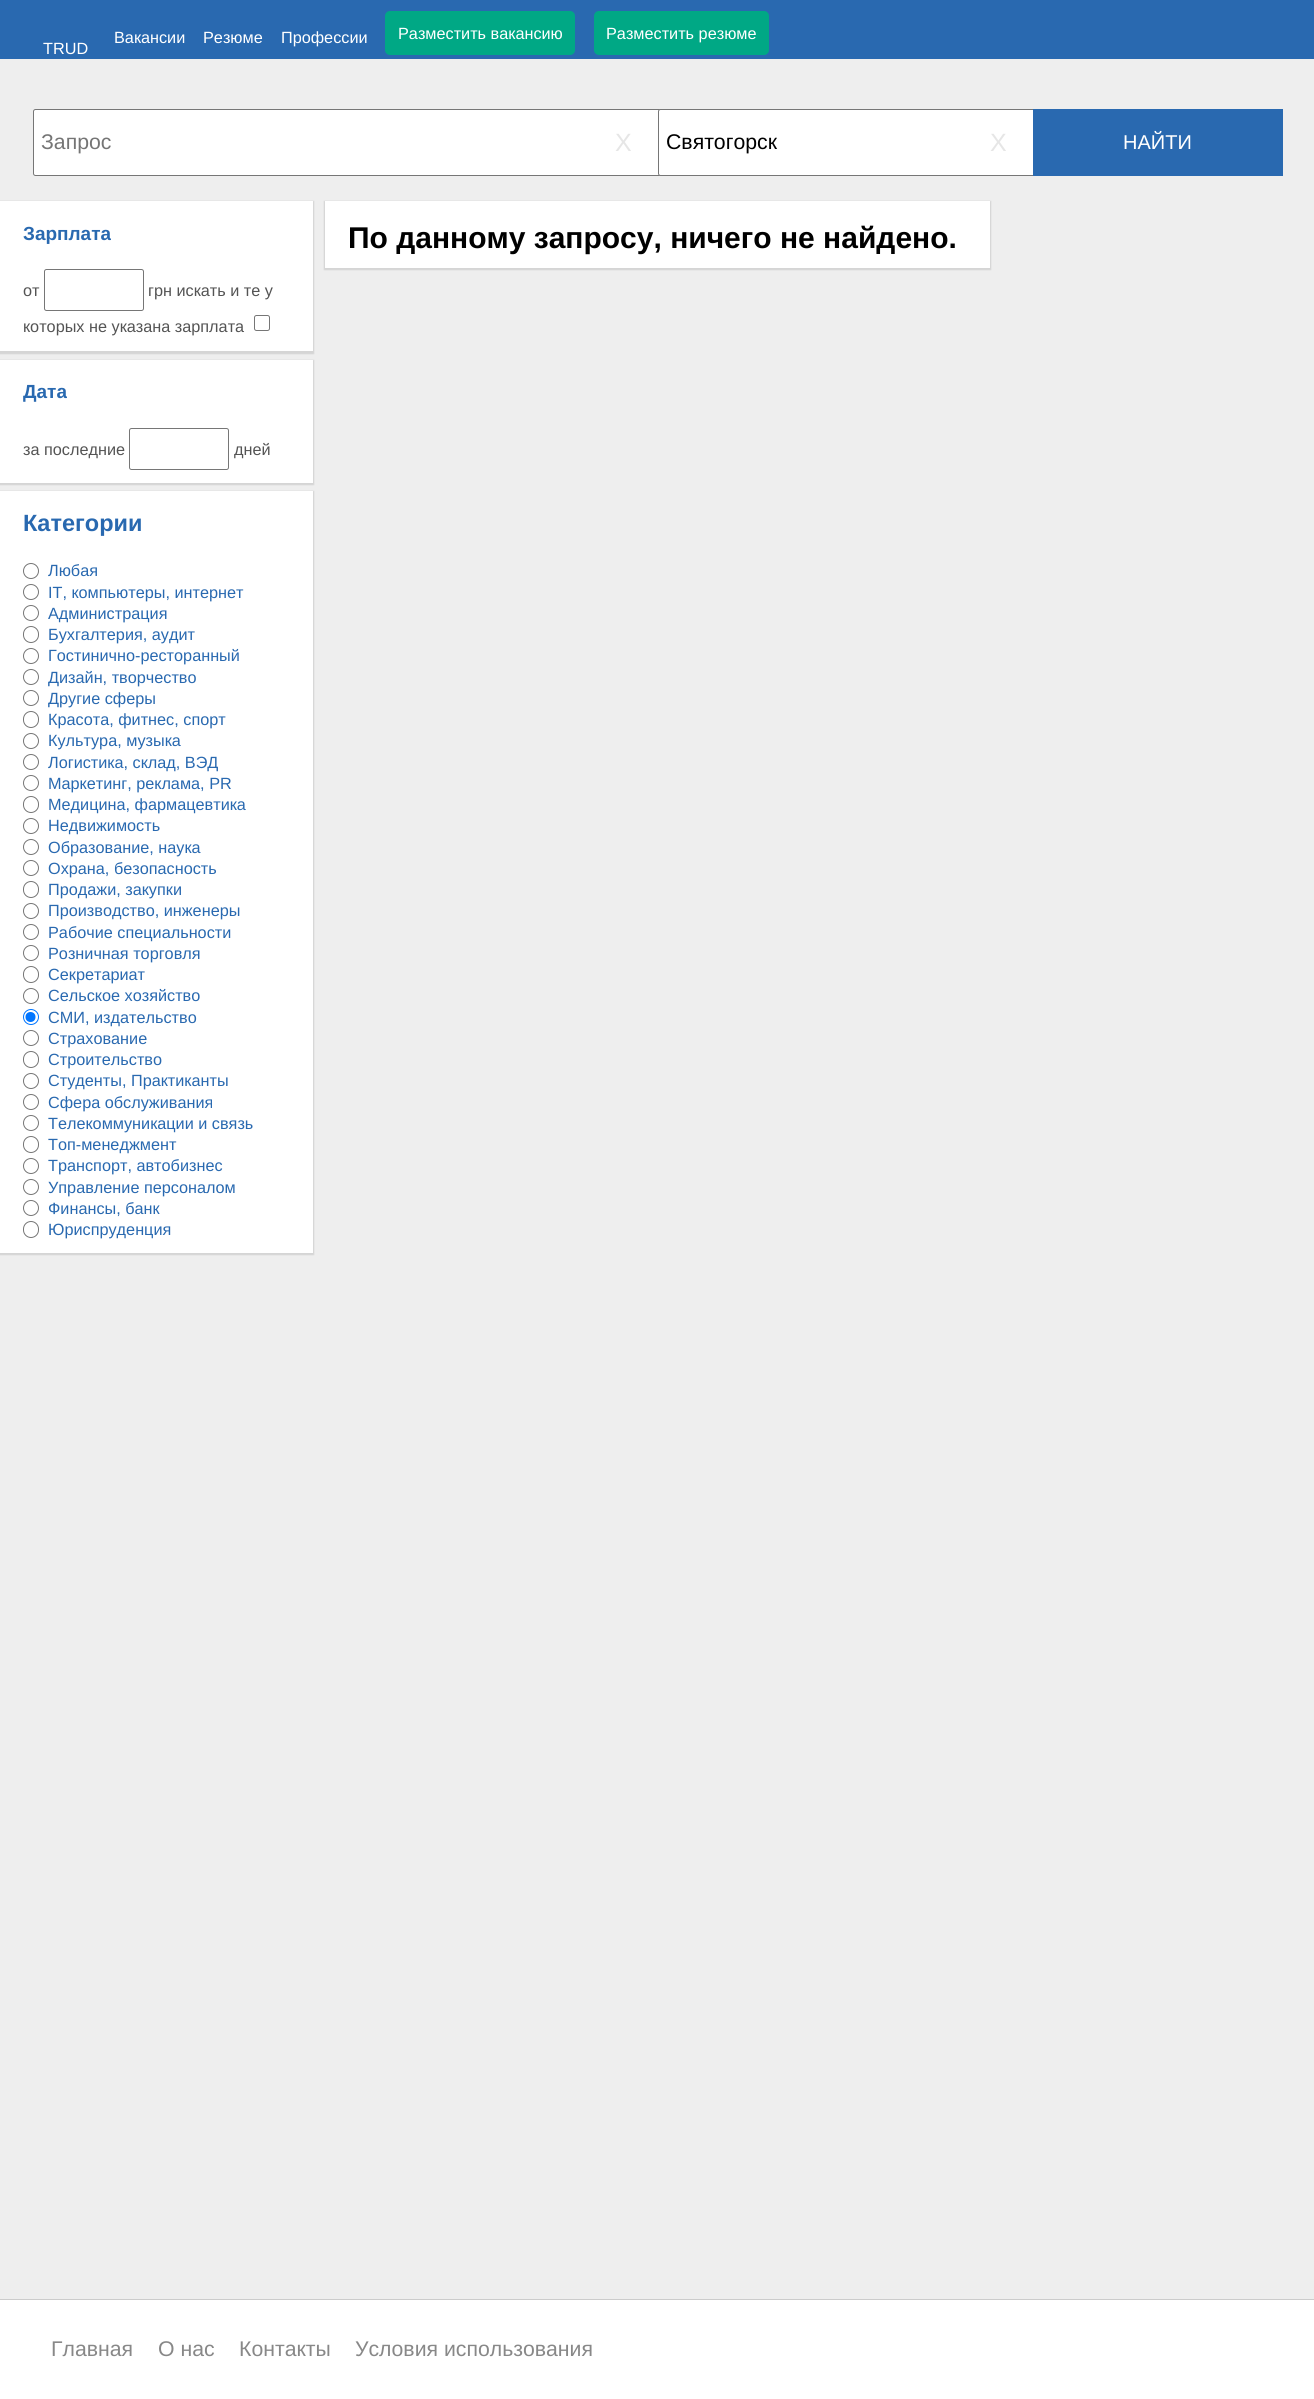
#include <cairo.h>
#include <math.h>
#include <stddef.h>

static cairo_t *ctx;

static void use_color(int r, int g, int b) {
    cairo_set_source_rgb(ctx, r / 255.0, g / 255.0, b / 255.0);
}

static void round_rect(double x, double y, double w, double h, double r) {
    cairo_new_sub_path(ctx);
    cairo_arc(ctx, x + w - r, y + h - r, r, 0, M_PI / 2);
    cairo_arc(ctx, x + r, y + h - r, r, M_PI / 2, M_PI);
    cairo_arc(ctx, x + r, y + r, r, M_PI, 1.5 * M_PI);
    cairo_arc(ctx, x + w - r, y + r, r, 1.5 * M_PI, 2 * M_PI);
    cairo_close_path(ctx);
}

static void shadow(double x, double y, double w, double h, double r, double blur, double alpha) {
    cairo_push_group_with_content(ctx, CAIRO_CONTENT_ALPHA);
    cairo_set_operator(ctx, CAIRO_OPERATOR_SOURCE);
    for (int i = 15; i >= -15 && fmin(w, h) + blur * i / 3 > 0; i -= 2) {
        double e = blur * i / 6;
        cairo_set_source_rgba(ctx, 0, 0, 0, alpha * erfc((i - 1) / 8.5) / 2);
        round_rect(x - e, y - e, w + 2 * e, h + 2 * e, fmax(0, fmin(r + e + blur * .6, fmin(w, h) / 2 + e)));
        cairo_fill(ctx);
    }
    cairo_pattern_t *soft = cairo_pop_group(ctx);
    cairo_mask(ctx, soft);
    cairo_pattern_destroy(soft);
}

int main(void) {
    cairo_surface_t *surface = cairo_image_surface_create(CAIRO_FORMAT_RGB24, 1314, 2399);
    ctx = cairo_create(surface);
    cairo_font_options_t *options = cairo_font_options_create();
    cairo_font_options_set_hint_metrics(options, CAIRO_HINT_METRICS_OFF);
    cairo_font_options_set_hint_style(options, CAIRO_HINT_STYLE_NONE);
    cairo_set_font_options(ctx, options);
    cairo_set_miter_limit(ctx, 4);
    use_color(238, 238, 238);
    cairo_paint(ctx);
    use_color(41, 105, 176);
    cairo_rectangle(ctx, 0, 0, 1314, 59);
    cairo_fill(ctx);
    cairo_select_font_face(ctx, "Liberation Sans", CAIRO_FONT_SLANT_NORMAL, CAIRO_FONT_WEIGHT_NORMAL);
    cairo_set_font_size(ctx, 16.25);
    use_color(255, 255, 255);
    cairo_move_to(ctx, 114, 43);
    cairo_show_text(ctx, "Вакансии");
    cairo_move_to(ctx, 203, 43);
    cairo_show_text(ctx, "Резюме");
    cairo_move_to(ctx, 281, 43);
    cairo_show_text(ctx, "Профессии");
    use_color(0, 168, 133);
    round_rect(385, 11, 190, 44, 5);
    cairo_fill(ctx);
    use_color(255, 255, 255);
    cairo_move_to(ctx, 398, 39);
    cairo_show_text(ctx, "Разместить вакансию");
    use_color(0, 168, 133);
    round_rect(594, 11, 175, 44, 5);
    cairo_fill(ctx);
    use_color(255, 255, 255);
    cairo_move_to(ctx, 606, 39);
    cairo_show_text(ctx, "Разместить резюме");
    cairo_move_to(ctx, 43, 54);
    cairo_show_text(ctx, "TRUD");
    round_rect(33.5, 109.5, 641, 66, 2);
    cairo_fill_preserve(ctx);
    use_color(118, 118, 118);
    cairo_set_line_width(ctx, 1);
    cairo_stroke(ctx);
    cairo_set_font_size(ctx, 21.25);
    use_color(117, 117, 117);
    cairo_move_to(ctx, 41, 149);
    cairo_show_text(ctx, "Запрос");
    cairo_set_font_size(ctx, 25);
    use_color(230, 230, 230);
    cairo_move_to(ctx, 615, 151);
    cairo_show_text(ctx, "X");
    use_color(255, 255, 255);
    round_rect(658.5, 109.5, 391, 66, 2);
    cairo_fill_preserve(ctx);
    use_color(118, 118, 118);
    cairo_stroke(ctx);
    cairo_set_font_size(ctx, 21.25);
    use_color(0, 0, 0);
    cairo_move_to(ctx, 666, 149);
    cairo_show_text(ctx, "Святогорск");
    cairo_set_font_size(ctx, 25);
    use_color(230, 230, 230);
    cairo_move_to(ctx, 990, 151);
    cairo_show_text(ctx, "X");
    use_color(41, 105, 176);
    cairo_rectangle(ctx, 1033, 109, 250, 67);
    cairo_fill(ctx);
    cairo_set_font_size(ctx, 20);
    use_color(255, 255, 255);
    cairo_move_to(ctx, 1123, 149);
    cairo_show_text(ctx, "НАЙТИ");
    use_color(153, 153, 153);
    shadow(-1, 201, 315, 153, 0, 0.5, 0.3);
    use_color(255, 255, 255);
    cairo_rectangle(ctx, 0, 201, 313, 150);
    cairo_fill(ctx);
    cairo_select_font_face(ctx, "Liberation Sans", CAIRO_FONT_SLANT_NORMAL, CAIRO_FONT_WEIGHT_BOLD);
    cairo_set_font_size(ctx, 19);
    use_color(41, 105, 176);
    cairo_move_to(ctx, 23, 240);
    cairo_show_text(ctx, "Зарплата");
    cairo_select_font_face(ctx, "Liberation Sans", CAIRO_FONT_SLANT_NORMAL, CAIRO_FONT_WEIGHT_NORMAL);
    cairo_set_font_size(ctx, 16.25);
    use_color(84, 84, 84);
    cairo_move_to(ctx, 23, 296);
    cairo_show_text(ctx, "от");
    round_rect(44.5, 269.5, 99, 41, 2);
    use_color(118, 118, 118);
    cairo_stroke(ctx);
    use_color(84, 84, 84);
    cairo_move_to(ctx, 148, 296);
    cairo_show_text(ctx, "грн искать и те у");
    cairo_move_to(ctx, 23, 332);
    cairo_show_text(ctx, "которых не указана зарплата");
    round_rect(254.5, 315.5, 15, 15, 2);
    use_color(118, 118, 118);
    cairo_stroke(ctx);
    use_color(153, 153, 153);
    shadow(-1, 360, 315, 125, 0, 0.5, 0.3);
    use_color(255, 255, 255);
    cairo_rectangle(ctx, 0, 360, 313, 123);
    cairo_fill(ctx);
    cairo_select_font_face(ctx, "Liberation Sans", CAIRO_FONT_SLANT_NORMAL, CAIRO_FONT_WEIGHT_BOLD);
    cairo_set_font_size(ctx, 19);
    use_color(41, 105, 176);
    cairo_move_to(ctx, 23, 398);
    cairo_show_text(ctx, "Дата");
    cairo_select_font_face(ctx, "Liberation Sans", CAIRO_FONT_SLANT_NORMAL, CAIRO_FONT_WEIGHT_NORMAL);
    cairo_set_font_size(ctx, 16.25);
    use_color(84, 84, 84);
    cairo_move_to(ctx, 23, 455);
    cairo_show_text(ctx, "за последние");
    round_rect(129.5, 428.5, 99, 41, 2);
    use_color(118, 118, 118);
    cairo_stroke(ctx);
    use_color(84, 84, 84);
    cairo_move_to(ctx, 234, 455);
    cairo_show_text(ctx, "дней");
    use_color(153, 153, 153);
    shadow(-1, 491, 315, 764, 0, 0.5, 0.3);
    use_color(255, 255, 255);
    cairo_rectangle(ctx, 0, 491, 313, 762);
    cairo_fill(ctx);
    cairo_select_font_face(ctx, "Liberation Sans", CAIRO_FONT_SLANT_NORMAL, CAIRO_FONT_WEIGHT_BOLD);
    cairo_set_font_size(ctx, 23.5);
    use_color(41, 105, 176);
    cairo_move_to(ctx, 23, 531);
    cairo_show_text(ctx, "Категории");
    cairo_new_path(ctx);
    cairo_arc(ctx, 31, 571, 7.5, 0, 2 * M_PI);
    use_color(118, 118, 118);
    cairo_stroke(ctx);
    cairo_select_font_face(ctx, "Liberation Sans", CAIRO_FONT_SLANT_NORMAL, CAIRO_FONT_WEIGHT_NORMAL);
    cairo_set_font_size(ctx, 16.25);
    use_color(41, 105, 176);
    cairo_move_to(ctx, 48, 576);
    cairo_show_text(ctx, "Любая");
    cairo_new_path(ctx);
    cairo_arc(ctx, 31, 592, 7.5, 0, 2 * M_PI);
    use_color(118, 118, 118);
    cairo_stroke(ctx);
    use_color(41, 105, 176);
    cairo_move_to(ctx, 48, 598);
    cairo_show_text(ctx, "IT, компьютеры, интернет");
    cairo_new_path(ctx);
    cairo_arc(ctx, 31, 613, 7.5, 0, 2 * M_PI);
    use_color(118, 118, 118);
    cairo_stroke(ctx);
    use_color(41, 105, 176);
    cairo_move_to(ctx, 48, 619);
    cairo_show_text(ctx, "Администрация");
    round_rect(23.5, 626.5, 15, 16, 7.5);
    use_color(118, 118, 118);
    cairo_stroke(ctx);
    use_color(41, 105, 176);
    cairo_move_to(ctx, 48, 640);
    cairo_show_text(ctx, "Бухгалтерия, аудит");
    cairo_new_path(ctx);
    cairo_arc(ctx, 31, 656, 7.5, 0, 2 * M_PI);
    use_color(118, 118, 118);
    cairo_stroke(ctx);
    use_color(41, 105, 176);
    cairo_move_to(ctx, 48, 661);
    cairo_show_text(ctx, "Гостинично-ресторанный");
    cairo_new_path(ctx);
    cairo_arc(ctx, 31, 677, 7.5, 0, 2 * M_PI);
    use_color(118, 118, 118);
    cairo_stroke(ctx);
    use_color(41, 105, 176);
    cairo_move_to(ctx, 48, 683);
    cairo_show_text(ctx, "Дизайн, творчество");
    cairo_new_path(ctx);
    cairo_arc(ctx, 31, 698, 7.5, 0, 2 * M_PI);
    use_color(118, 118, 118);
    cairo_stroke(ctx);
    use_color(41, 105, 176);
    cairo_move_to(ctx, 48, 704);
    cairo_show_text(ctx, "Другие сферы");
    round_rect(23.5, 711.5, 15, 16, 7.5);
    use_color(118, 118, 118);
    cairo_stroke(ctx);
    use_color(41, 105, 176);
    cairo_move_to(ctx, 48, 725);
    cairo_show_text(ctx, "Красота, фитнес, спорт");
    cairo_new_path(ctx);
    cairo_arc(ctx, 31, 741, 7.5, 0, 2 * M_PI);
    use_color(118, 118, 118);
    cairo_stroke(ctx);
    use_color(41, 105, 176);
    cairo_move_to(ctx, 48, 746);
    cairo_show_text(ctx, "Культура, музыка");
    cairo_new_path(ctx);
    cairo_arc(ctx, 31, 762, 7.5, 0, 2 * M_PI);
    use_color(118, 118, 118);
    cairo_stroke(ctx);
    use_color(41, 105, 176);
    cairo_move_to(ctx, 48, 768);
    cairo_show_text(ctx, "Логистика, склад, ВЭД");
    cairo_new_path(ctx);
    cairo_arc(ctx, 31, 783, 7.5, 0, 2 * M_PI);
    use_color(118, 118, 118);
    cairo_stroke(ctx);
    use_color(41, 105, 176);
    cairo_move_to(ctx, 48, 789);
    cairo_show_text(ctx, "Маркетинг, реклама, PR");
    round_rect(23.5, 796.5, 15, 16, 7.5);
    use_color(118, 118, 118);
    cairo_stroke(ctx);
    use_color(41, 105, 176);
    cairo_move_to(ctx, 48, 810);
    cairo_show_text(ctx, "Медицина, фармацевтика");
    cairo_new_path(ctx);
    cairo_arc(ctx, 31, 826, 7.5, 0, 2 * M_PI);
    use_color(118, 118, 118);
    cairo_stroke(ctx);
    use_color(41, 105, 176);
    cairo_move_to(ctx, 48, 831);
    cairo_show_text(ctx, "Недвижимость");
    cairo_new_path(ctx);
    cairo_arc(ctx, 31, 847, 7.5, 0, 2 * M_PI);
    use_color(118, 118, 118);
    cairo_stroke(ctx);
    use_color(41, 105, 176);
    cairo_move_to(ctx, 48, 853);
    cairo_show_text(ctx, "Образование, наука");
    cairo_new_path(ctx);
    cairo_arc(ctx, 31, 868, 7.5, 0, 2 * M_PI);
    use_color(118, 118, 118);
    cairo_stroke(ctx);
    use_color(41, 105, 176);
    cairo_move_to(ctx, 48, 874);
    cairo_show_text(ctx, "Охрана, безопасность");
    round_rect(23.5, 881.5, 15, 16, 7.5);
    use_color(118, 118, 118);
    cairo_stroke(ctx);
    use_color(41, 105, 176);
    cairo_move_to(ctx, 48, 895);
    cairo_show_text(ctx, "Продажи, закупки");
    cairo_new_path(ctx);
    cairo_arc(ctx, 31, 911, 7.5, 0, 2 * M_PI);
    use_color(118, 118, 118);
    cairo_stroke(ctx);
    use_color(41, 105, 176);
    cairo_move_to(ctx, 48, 916);
    cairo_show_text(ctx, "Производство, инженеры");
    cairo_new_path(ctx);
    cairo_arc(ctx, 31, 932, 7.5, 0, 2 * M_PI);
    use_color(118, 118, 118);
    cairo_stroke(ctx);
    use_color(41, 105, 176);
    cairo_move_to(ctx, 48, 938);
    cairo_show_text(ctx, "Рабочие специальности");
    cairo_new_path(ctx);
    cairo_arc(ctx, 31, 953, 7.5, 0, 2 * M_PI);
    use_color(118, 118, 118);
    cairo_stroke(ctx);
    use_color(41, 105, 176);
    cairo_move_to(ctx, 48, 959);
    cairo_show_text(ctx, "Розничная торговля");
    round_rect(23.5, 966.5, 15, 16, 7.5);
    use_color(118, 118, 118);
    cairo_stroke(ctx);
    use_color(41, 105, 176);
    cairo_move_to(ctx, 48, 980);
    cairo_show_text(ctx, "Секретариат");
    cairo_new_path(ctx);
    cairo_arc(ctx, 31, 996, 7.5, 0, 2 * M_PI);
    use_color(118, 118, 118);
    cairo_stroke(ctx);
    use_color(41, 105, 176);
    cairo_move_to(ctx, 48, 1001);
    cairo_show_text(ctx, "Сельское хозяйство");
    cairo_new_path(ctx);
    cairo_arc(ctx, 31, 1017, 7.5, 0, 2 * M_PI);
    use_color(0, 117, 255);
    cairo_stroke(ctx);
    cairo_arc(ctx, 30.5, 1017, 5, 0, 2 * M_PI);
    cairo_fill(ctx);
    use_color(41, 105, 176);
    cairo_move_to(ctx, 48, 1023);
    cairo_show_text(ctx, "СМИ, издательство");
    cairo_new_path(ctx);
    cairo_arc(ctx, 31, 1038, 7.5, 0, 2 * M_PI);
    use_color(118, 118, 118);
    cairo_stroke(ctx);
    use_color(41, 105, 176);
    cairo_move_to(ctx, 48, 1044);
    cairo_show_text(ctx, "Страхование");
    round_rect(23.5, 1051.5, 15, 16, 7.5);
    use_color(118, 118, 118);
    cairo_stroke(ctx);
    use_color(41, 105, 176);
    cairo_move_to(ctx, 48, 1065);
    cairo_show_text(ctx, "Строительство");
    cairo_new_path(ctx);
    cairo_arc(ctx, 31, 1081, 7.5, 0, 2 * M_PI);
    use_color(118, 118, 118);
    cairo_stroke(ctx);
    use_color(41, 105, 176);
    cairo_move_to(ctx, 48, 1086);
    cairo_show_text(ctx, "Студенты, Практиканты");
    cairo_new_path(ctx);
    cairo_arc(ctx, 31, 1102, 7.5, 0, 2 * M_PI);
    use_color(118, 118, 118);
    cairo_stroke(ctx);
    use_color(41, 105, 176);
    cairo_move_to(ctx, 48, 1108);
    cairo_show_text(ctx, "Сфера обслуживания");
    cairo_new_path(ctx);
    cairo_arc(ctx, 31, 1123, 7.5, 0, 2 * M_PI);
    use_color(118, 118, 118);
    cairo_stroke(ctx);
    use_color(41, 105, 176);
    cairo_move_to(ctx, 48, 1129);
    cairo_show_text(ctx, "Телекоммуникации и связь");
    round_rect(23.5, 1136.5, 15, 16, 7.5);
    use_color(118, 118, 118);
    cairo_stroke(ctx);
    use_color(41, 105, 176);
    cairo_move_to(ctx, 48, 1150);
    cairo_show_text(ctx, "Топ-менеджмент");
    cairo_new_path(ctx);
    cairo_arc(ctx, 31, 1166, 7.5, 0, 2 * M_PI);
    use_color(118, 118, 118);
    cairo_stroke(ctx);
    use_color(41, 105, 176);
    cairo_move_to(ctx, 48, 1171);
    cairo_show_text(ctx, "Транспорт, автобизнес");
    cairo_new_path(ctx);
    cairo_arc(ctx, 31, 1187, 7.5, 0, 2 * M_PI);
    use_color(118, 118, 118);
    cairo_stroke(ctx);
    use_color(41, 105, 176);
    cairo_move_to(ctx, 48, 1193);
    cairo_show_text(ctx, "Управление персоналом");
    cairo_new_path(ctx);
    cairo_arc(ctx, 31, 1208, 7.5, 0, 2 * M_PI);
    use_color(118, 118, 118);
    cairo_stroke(ctx);
    use_color(41, 105, 176);
    cairo_move_to(ctx, 48, 1214);
    cairo_show_text(ctx, "Финансы, банк");
    round_rect(23.5, 1221.5, 15, 16, 7.5);
    use_color(118, 118, 118);
    cairo_stroke(ctx);
    use_color(41, 105, 176);
    cairo_move_to(ctx, 48, 1235);
    cairo_show_text(ctx, "Юриспруденция");
    use_color(153, 153, 153);
    shadow(324, 201, 667, 69, 0, 0.5, 0.3);
    use_color(255, 255, 255);
    cairo_rectangle(ctx, 325, 201, 665, 67);
    cairo_fill(ctx);
    cairo_select_font_face(ctx, "Liberation Sans", CAIRO_FONT_SLANT_NORMAL, CAIRO_FONT_WEIGHT_BOLD);
    cairo_set_font_size(ctx, 30);
    use_color(0, 0, 0);
    cairo_move_to(ctx, 348, 248);
    cairo_show_text(ctx, "По данному запросу, ничего не найдено.");
    use_color(255, 255, 255);
    cairo_rectangle(ctx, 0, 2300, 1314, 99);
    cairo_fill(ctx);
    use_color(204, 204, 204);
    cairo_rectangle(ctx, 0, 2299, 1314, 1);
    cairo_fill(ctx);
    cairo_select_font_face(ctx, "Liberation Sans", CAIRO_FONT_SLANT_NORMAL, CAIRO_FONT_WEIGHT_NORMAL);
    cairo_set_font_size(ctx, 21.25);
    use_color(136, 136, 136);
    cairo_move_to(ctx, 51, 2356);
    cairo_show_text(ctx, "Главная");
    cairo_move_to(ctx, 158, 2356);
    cairo_show_text(ctx, "О нас");
    cairo_move_to(ctx, 239, 2356);
    cairo_show_text(ctx, "Контакты");
    cairo_move_to(ctx, 355, 2356);
    cairo_show_text(ctx, "Условия использования");
    cairo_surface_write_to_png(surface, "result.png");
    cairo_font_options_destroy(options);
    cairo_destroy(ctx);
    cairo_surface_destroy(surface);
    return 0;
}
